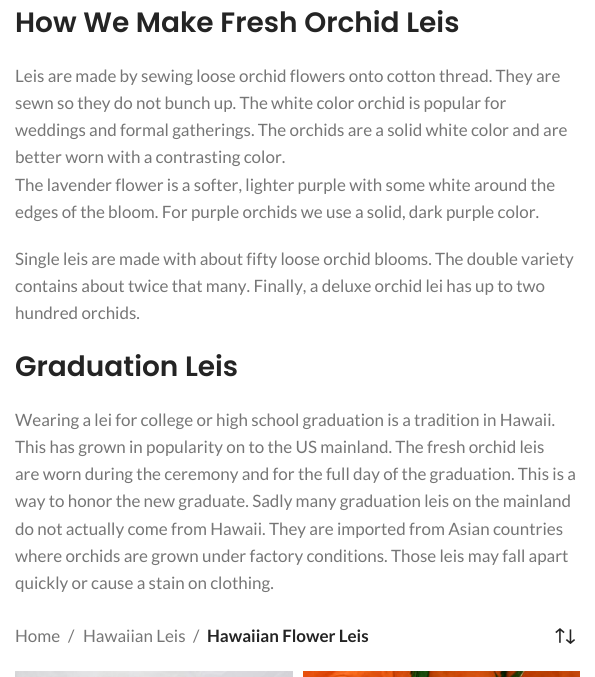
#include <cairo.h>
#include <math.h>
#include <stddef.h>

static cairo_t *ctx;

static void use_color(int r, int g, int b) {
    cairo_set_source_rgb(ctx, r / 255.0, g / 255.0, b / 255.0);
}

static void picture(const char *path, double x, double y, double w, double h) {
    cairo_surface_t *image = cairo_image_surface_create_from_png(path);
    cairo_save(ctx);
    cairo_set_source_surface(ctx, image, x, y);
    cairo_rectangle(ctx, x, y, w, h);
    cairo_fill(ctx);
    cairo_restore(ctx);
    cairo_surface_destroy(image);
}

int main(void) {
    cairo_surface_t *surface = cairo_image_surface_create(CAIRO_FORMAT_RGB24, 595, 677);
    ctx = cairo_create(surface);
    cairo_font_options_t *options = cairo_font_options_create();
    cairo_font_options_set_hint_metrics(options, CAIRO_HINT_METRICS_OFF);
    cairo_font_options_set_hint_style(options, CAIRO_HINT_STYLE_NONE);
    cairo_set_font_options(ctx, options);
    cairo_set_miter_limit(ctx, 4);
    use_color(255, 255, 255);
    cairo_paint(ctx);
    cairo_select_font_face(ctx, "Poppins SemiBold", CAIRO_FONT_SLANT_NORMAL, CAIRO_FONT_WEIGHT_NORMAL);
    cairo_set_font_size(ctx, 28);
    use_color(36, 36, 36);
    cairo_move_to(ctx, 15, 32);
    cairo_show_text(ctx, "How We Make Fresh Orchid Leis");
    cairo_select_font_face(ctx, "Lato", CAIRO_FONT_SLANT_NORMAL, CAIRO_FONT_WEIGHT_NORMAL);
    cairo_set_font_size(ctx, 17);
    use_color(118, 118, 118);
    cairo_move_to(ctx, 15, 82);
    cairo_show_text(ctx, "Leis are made by sewing loose orchid flowers onto cotton thread. They are");
    cairo_move_to(ctx, 15, 109);
    cairo_show_text(ctx, "sewn so they do not bunch up. The white color orchid is popular for");
    cairo_move_to(ctx, 15, 136);
    cairo_show_text(ctx, "weddings and formal gatherings. The orchids are a solid white color and are");
    cairo_move_to(ctx, 15, 163);
    cairo_show_text(ctx, "better worn with a contrasting color.");
    cairo_move_to(ctx, 15, 191);
    cairo_show_text(ctx, "The lavender flower is a softer, lighter purple with some white around the");
    cairo_move_to(ctx, 15, 218);
    cairo_show_text(ctx, "edges of the bloom. For purple orchids we use a solid, dark purple color.");
    cairo_move_to(ctx, 15, 265);
    cairo_show_text(ctx, "Single leis are made with about fifty loose orchid blooms. The double variety");
    cairo_move_to(ctx, 15, 292);
    cairo_show_text(ctx, "contains about twice that many. Finally, a deluxe orchid lei has up to two");
    cairo_move_to(ctx, 15, 319);
    cairo_show_text(ctx, "hundred orchids.");
    cairo_select_font_face(ctx, "Poppins SemiBold", CAIRO_FONT_SLANT_NORMAL, CAIRO_FONT_WEIGHT_NORMAL);
    cairo_set_font_size(ctx, 28);
    use_color(36, 36, 36);
    cairo_move_to(ctx, 15, 376);
    cairo_show_text(ctx, "Graduation Leis");
    cairo_select_font_face(ctx, "Lato", CAIRO_FONT_SLANT_NORMAL, CAIRO_FONT_WEIGHT_NORMAL);
    cairo_set_font_size(ctx, 17);
    use_color(118, 118, 118);
    cairo_move_to(ctx, 15, 426);
    cairo_show_text(ctx, "Wearing a lei for college or high school graduation is a tradition in Hawaii.");
    cairo_move_to(ctx, 15, 453);
    cairo_show_text(ctx, "This has grown in popularity on to the US mainland. The fresh orchid leis");
    cairo_move_to(ctx, 15, 480);
    cairo_show_text(ctx, "are worn during the ceremony and for the full day of the graduation. This is a");
    cairo_move_to(ctx, 15, 507);
    cairo_show_text(ctx, "way to honor the new graduate. Sadly many graduation leis on the mainland");
    cairo_move_to(ctx, 15, 535);
    cairo_show_text(ctx, "do not actually come from Hawaii. They are imported from Asian countries");
    cairo_move_to(ctx, 15, 562);
    cairo_show_text(ctx, "where orchids are grown under factory conditions. Those leis may fall apart");
    cairo_move_to(ctx, 15, 589);
    cairo_show_text(ctx, "quickly or cause a stain on clothing.");
    cairo_move_to(ctx, 15, 642);
    cairo_show_text(ctx, "Home");
    cairo_move_to(ctx, 68, 642);
    cairo_show_text(ctx, "/");
    cairo_move_to(ctx, 83, 642);
    cairo_show_text(ctx, "Hawaiian Leis");
    cairo_move_to(ctx, 193, 642);
    cairo_show_text(ctx, "/");
    cairo_select_font_face(ctx, "Lato", CAIRO_FONT_SLANT_NORMAL, CAIRO_FONT_WEIGHT_BOLD);
    use_color(36, 36, 36);
    cairo_move_to(ctx, 207, 642);
    cairo_show_text(ctx, "Hawaiian Flower Leis");
    picture("img1.png", 555, 628, 20, 16);
    picture("img2.png", 15, 671, 278, 6);
    picture("img3.png", 303, 671, 277, 6);
    cairo_surface_write_to_png(surface, "result.png");
    cairo_font_options_destroy(options);
    cairo_destroy(ctx);
    cairo_surface_destroy(surface);
    return 0;
}
